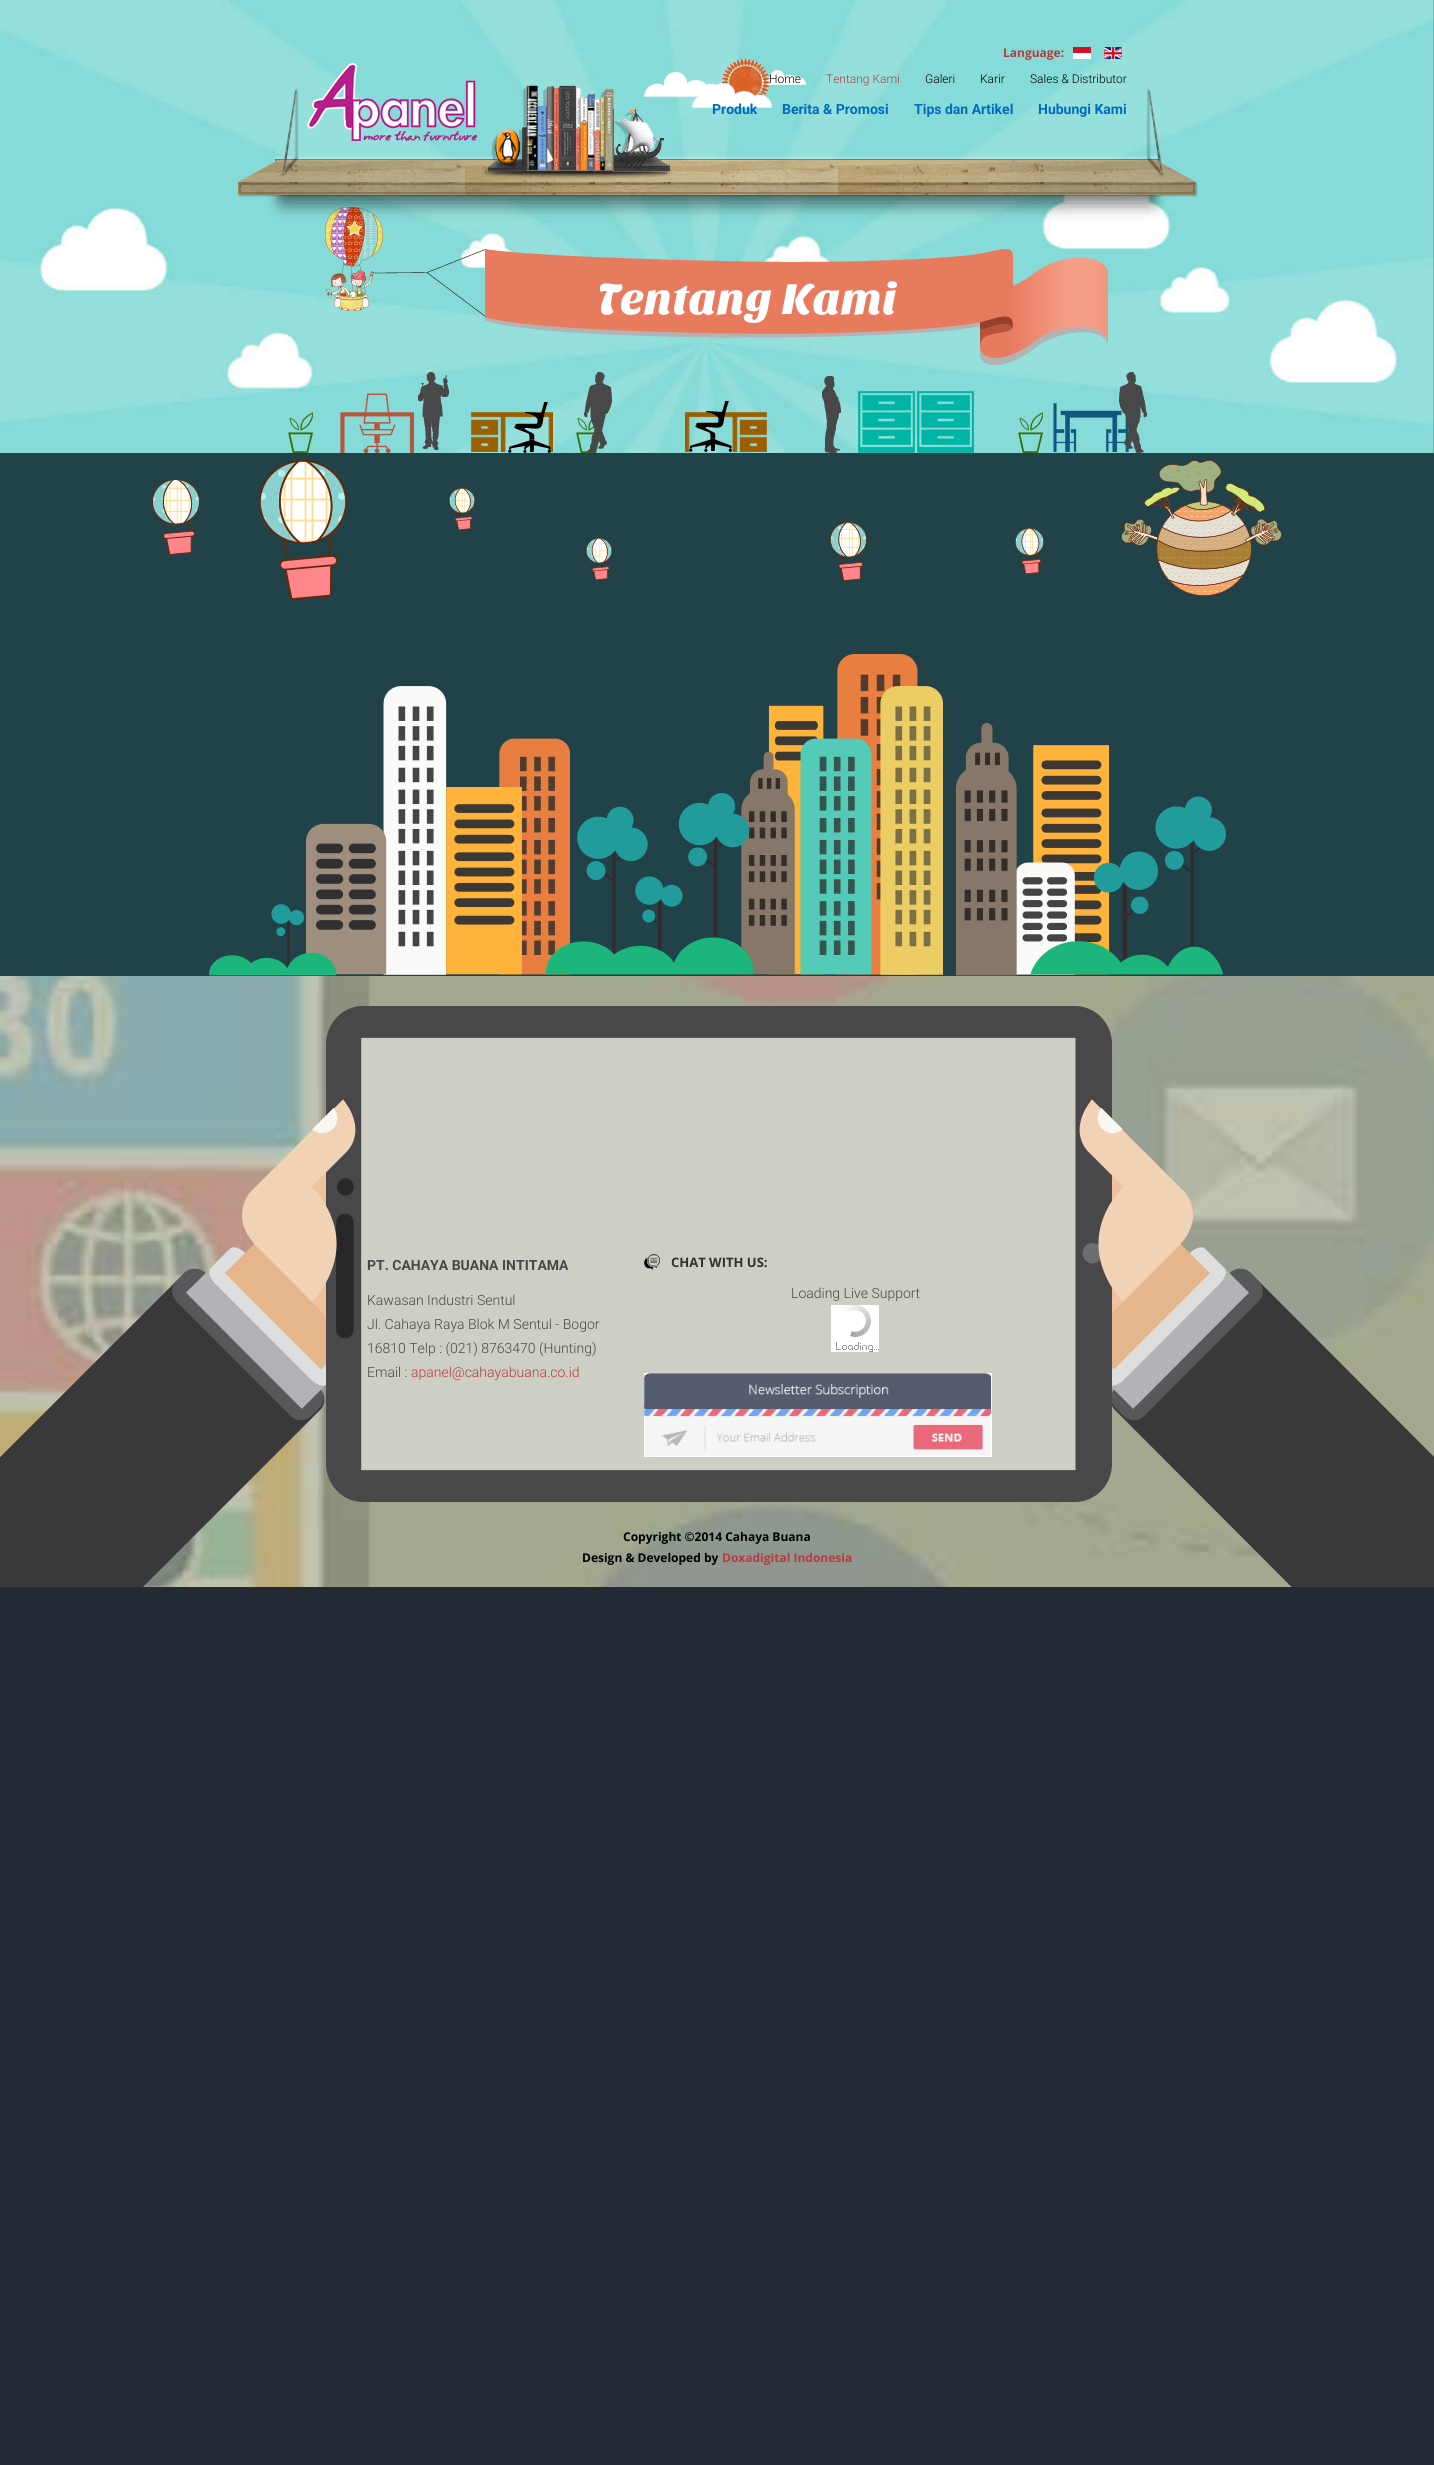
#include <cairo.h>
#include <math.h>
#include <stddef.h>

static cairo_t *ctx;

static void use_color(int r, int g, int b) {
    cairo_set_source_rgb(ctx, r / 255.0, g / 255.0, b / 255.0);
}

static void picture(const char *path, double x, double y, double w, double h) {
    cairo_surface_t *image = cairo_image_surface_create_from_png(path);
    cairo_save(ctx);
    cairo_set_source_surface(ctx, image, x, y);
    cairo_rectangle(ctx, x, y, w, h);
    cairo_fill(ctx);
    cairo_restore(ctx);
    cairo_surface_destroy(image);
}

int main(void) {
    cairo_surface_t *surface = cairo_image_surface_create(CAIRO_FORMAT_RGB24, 1434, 2465);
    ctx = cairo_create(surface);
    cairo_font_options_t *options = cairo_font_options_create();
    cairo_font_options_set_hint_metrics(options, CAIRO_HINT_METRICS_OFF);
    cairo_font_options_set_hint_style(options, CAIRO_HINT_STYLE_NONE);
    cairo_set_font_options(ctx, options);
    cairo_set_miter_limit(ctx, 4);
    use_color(34, 43, 52);
    cairo_paint(ctx);
    picture("img1.png", 0, 0, 1434, 453);
    picture("img7.png", 325, 207, 783, 158);
    picture("img2.png", 238, 58, 960, 164);
    picture("img3.png", 307, 63, 170, 78);
    cairo_select_font_face(ctx, "Open Sans", CAIRO_FONT_SLANT_NORMAL, CAIRO_FONT_WEIGHT_BOLD);
    cairo_set_font_size(ctx, 12);
    use_color(181, 60, 60);
    cairo_move_to(ctx, 1003, 57);
    cairo_show_text(ctx, "Language:");
    picture("img4.png", 1073, 47, 18, 12);
    picture("img5.png", 1104, 47, 18, 12);
    cairo_select_font_face(ctx, "Roboto Light", CAIRO_FONT_SLANT_NORMAL, CAIRO_FONT_WEIGHT_NORMAL);
    use_color(0, 0, 0);
    cairo_move_to(ctx, 769, 83);
    cairo_show_text(ctx, "Home");
    use_color(181, 60, 60);
    cairo_move_to(ctx, 826, 83);
    cairo_show_text(ctx, "Tentang Kami");
    use_color(0, 0, 0);
    cairo_move_to(ctx, 925, 83);
    cairo_show_text(ctx, "Galeri");
    cairo_move_to(ctx, 980, 83);
    cairo_show_text(ctx, "Karir");
    cairo_move_to(ctx, 1030, 83);
    cairo_show_text(ctx, "Sales & Distributor");
    cairo_select_font_face(ctx, "Roboto", CAIRO_FONT_SLANT_NORMAL, CAIRO_FONT_WEIGHT_BOLD);
    cairo_set_font_size(ctx, 14);
    use_color(0, 106, 193);
    cairo_move_to(ctx, 712, 114);
    cairo_show_text(ctx, "Produk");
    cairo_move_to(ctx, 782, 114);
    cairo_show_text(ctx, "Berita & Promosi");
    cairo_move_to(ctx, 914, 114);
    cairo_show_text(ctx, "Tips dan Artikel");
    cairo_move_to(ctx, 1038, 114);
    cairo_show_text(ctx, "Hubungi Kami");
    picture("img6.png", 288, 372, 859, 81);
    cairo_select_font_face(ctx, "Sansita One", CAIRO_FONT_SLANT_NORMAL, CAIRO_FONT_WEIGHT_NORMAL);
    cairo_set_font_size(ctx, 45);
    use_color(255, 255, 255);
    cairo_move_to(ctx, 597, 314);
    cairo_show_text(ctx, "Tentang Kami");
    use_color(32, 66, 72);
    cairo_rectangle(ctx, 0, 453, 1434, 523);
    cairo_fill(ctx);
    picture("img8.png", 152, 460, 1130, 140);
    picture("img9.png", 209, 654, 1017, 322);
    picture("img10.png", 0, 976, 1434, 611);
    picture("img11.png", 0, 1006, 1434, 581);
    cairo_select_font_face(ctx, "Roboto", CAIRO_FONT_SLANT_NORMAL, CAIRO_FONT_WEIGHT_BOLD);
    cairo_set_font_size(ctx, 14);
    use_color(72, 72, 74);
    cairo_move_to(ctx, 367, 1270);
    cairo_show_text(ctx, "PT. CAHAYA BUANA INTITAMA");
    cairo_select_font_face(ctx, "Roboto Light", CAIRO_FONT_SLANT_NORMAL, CAIRO_FONT_WEIGHT_NORMAL);
    cairo_move_to(ctx, 367, 1305);
    cairo_show_text(ctx, "Kawasan Industri Sentul");
    cairo_move_to(ctx, 367, 1329);
    cairo_show_text(ctx, "Jl. Cahaya Raya Blok M Sentul - Bogor");
    cairo_move_to(ctx, 367, 1353);
    cairo_show_text(ctx, "16810 Telp : (021) 8763470 (Hunting)");
    cairo_move_to(ctx, 367, 1377);
    cairo_show_text(ctx, "Email :");
    use_color(181, 60, 60);
    cairo_move_to(ctx, 411, 1377);
    cairo_show_text(ctx, "apanel@cahayabuana.co.id");
    picture("img12.png", 644, 1254, 16, 16);
    cairo_select_font_face(ctx, "Open Sans", CAIRO_FONT_SLANT_NORMAL, CAIRO_FONT_WEIGHT_BOLD);
    cairo_set_font_size(ctx, 13);
    use_color(50, 50, 50);
    cairo_move_to(ctx, 671, 1267);
    cairo_show_text(ctx, "CHAT WITH US:");
    cairo_select_font_face(ctx, "Roboto Light", CAIRO_FONT_SLANT_NORMAL, CAIRO_FONT_WEIGHT_NORMAL);
    cairo_set_font_size(ctx, 14);
    use_color(72, 72, 74);
    cairo_move_to(ctx, 791, 1298);
    cairo_show_text(ctx, "Loading Live Support");
    picture("img13.png", 831, 1305, 48, 47);
    picture("img14.png", 644, 1373, 348, 84);
    cairo_select_font_face(ctx, "Open Sans", CAIRO_FONT_SLANT_NORMAL, CAIRO_FONT_WEIGHT_BOLD);
    cairo_set_font_size(ctx, 12);
    use_color(0, 0, 0);
    cairo_move_to(ctx, 623, 1541);
    cairo_show_text(ctx, "Copyright ©2014 Cahaya Buana");
    cairo_move_to(ctx, 582, 1562);
    cairo_show_text(ctx, "Design & Developed by");
    use_color(181, 60, 60);
    cairo_move_to(ctx, 722, 1562);
    cairo_show_text(ctx, "Doxadigital Indonesia");
    cairo_surface_write_to_png(surface, "result.png");
    cairo_font_options_destroy(options);
    cairo_destroy(ctx);
    cairo_surface_destroy(surface);
    return 0;
}
